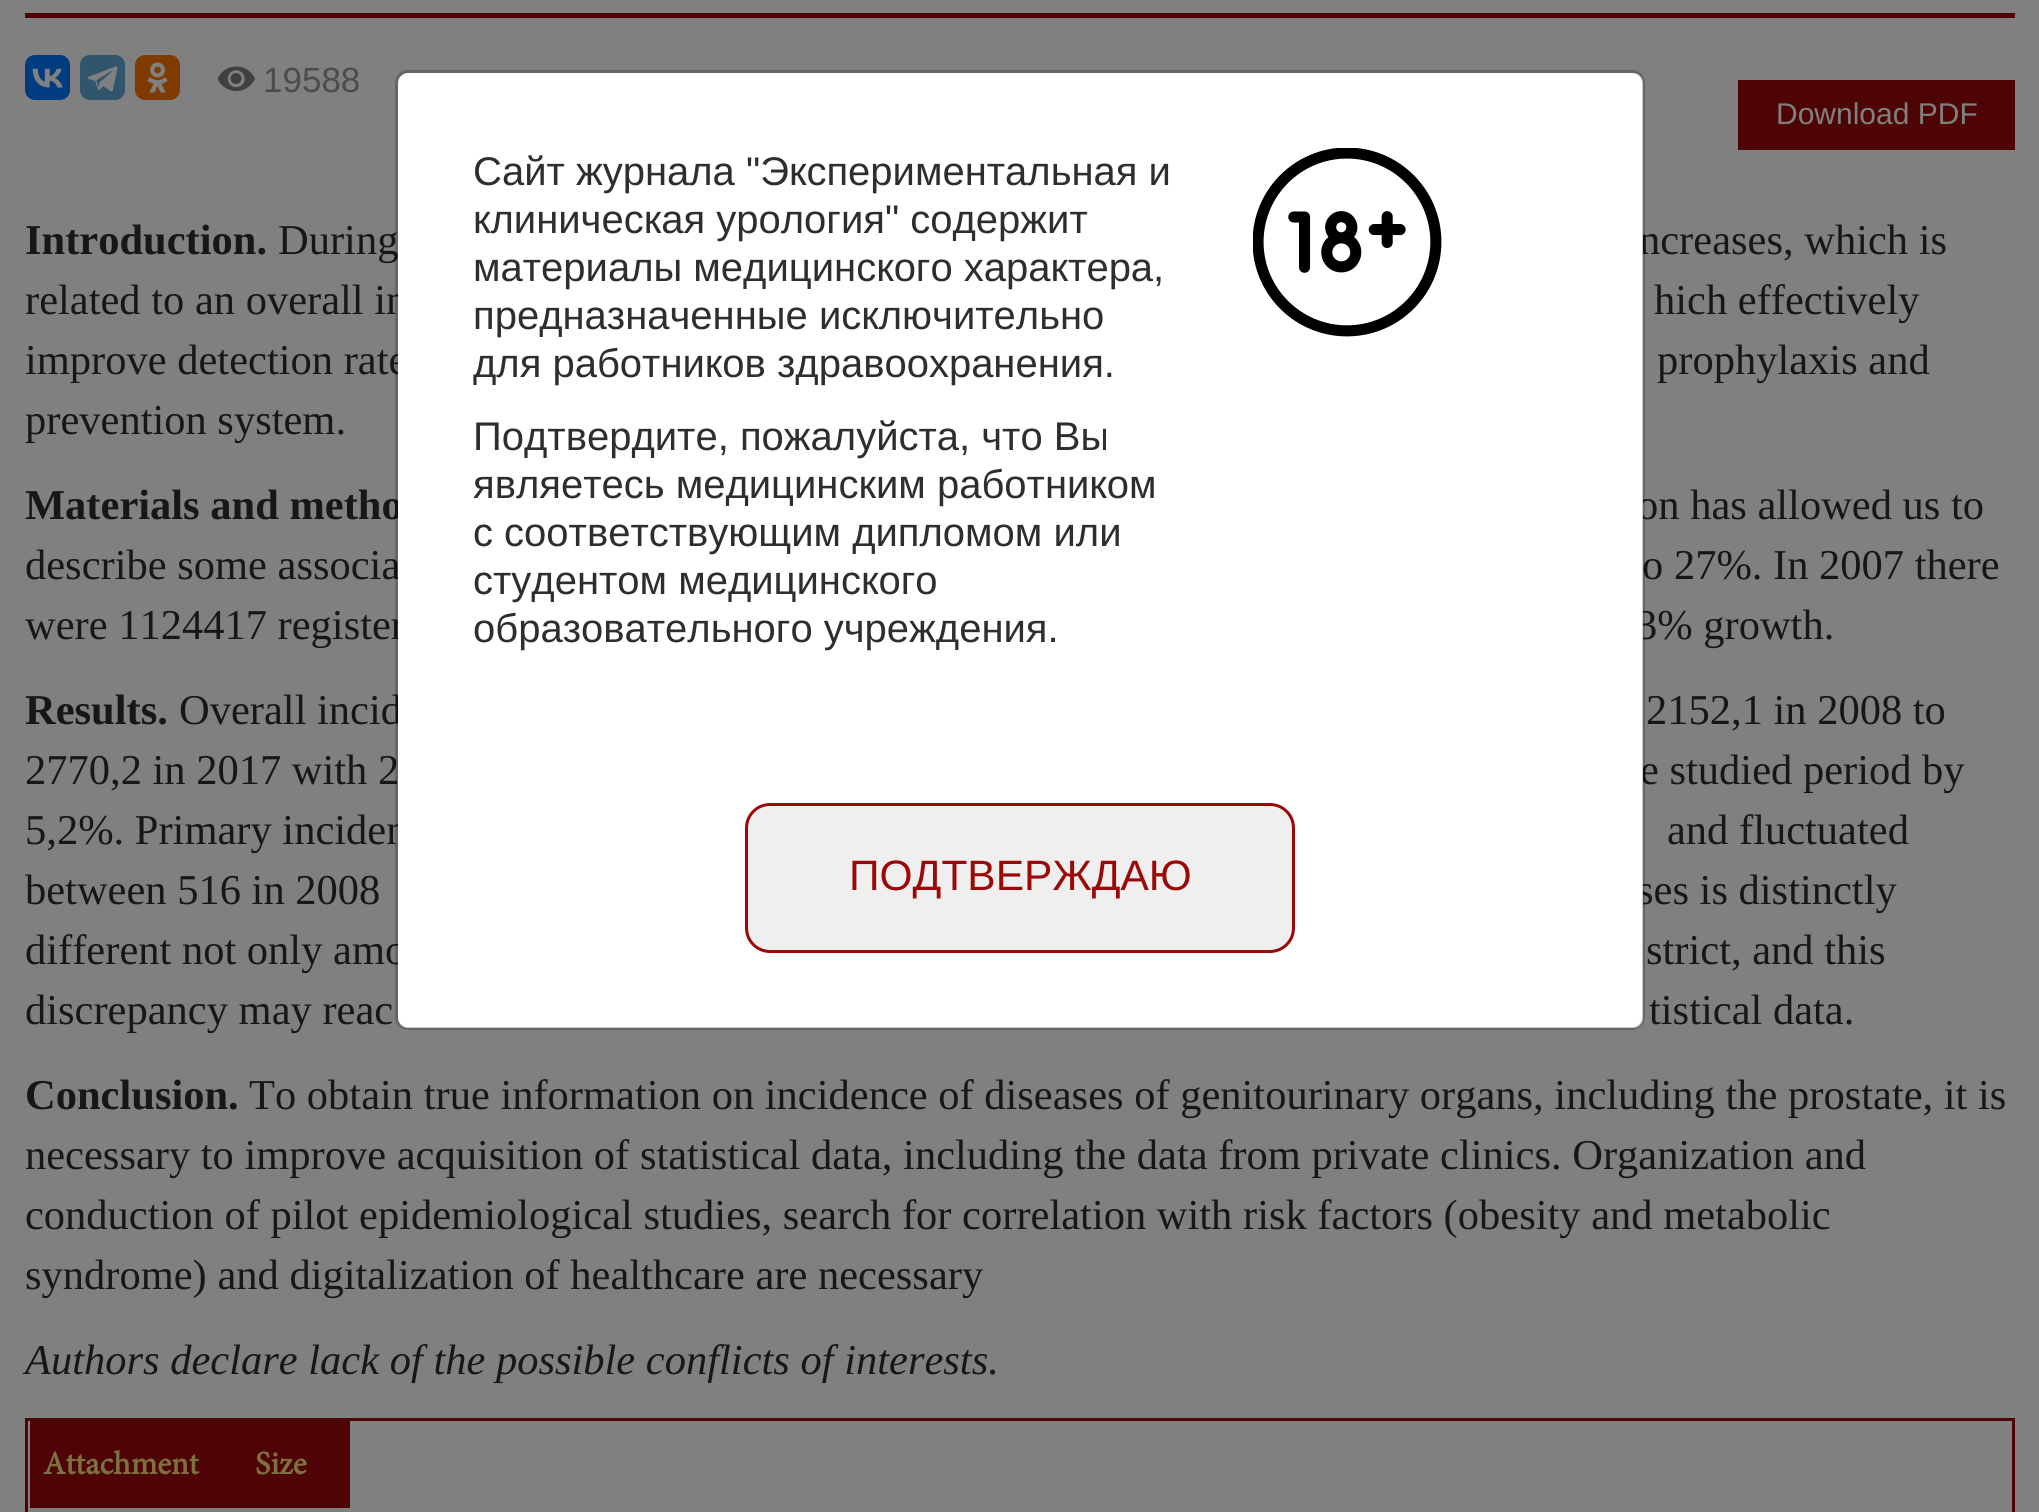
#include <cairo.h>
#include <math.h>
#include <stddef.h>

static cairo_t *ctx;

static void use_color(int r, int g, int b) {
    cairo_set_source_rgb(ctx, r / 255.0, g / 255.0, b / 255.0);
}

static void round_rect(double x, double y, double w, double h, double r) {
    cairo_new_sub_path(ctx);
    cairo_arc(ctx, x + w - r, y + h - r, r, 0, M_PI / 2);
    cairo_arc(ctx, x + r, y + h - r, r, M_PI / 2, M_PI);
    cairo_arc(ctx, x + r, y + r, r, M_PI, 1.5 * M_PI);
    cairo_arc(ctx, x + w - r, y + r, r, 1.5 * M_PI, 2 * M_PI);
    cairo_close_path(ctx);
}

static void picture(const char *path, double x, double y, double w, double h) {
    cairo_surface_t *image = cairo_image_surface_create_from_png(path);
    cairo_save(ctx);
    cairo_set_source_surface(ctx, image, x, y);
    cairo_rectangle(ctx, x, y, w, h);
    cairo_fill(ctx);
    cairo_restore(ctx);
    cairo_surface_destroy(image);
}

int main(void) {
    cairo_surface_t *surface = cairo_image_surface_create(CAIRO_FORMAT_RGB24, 2039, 1512);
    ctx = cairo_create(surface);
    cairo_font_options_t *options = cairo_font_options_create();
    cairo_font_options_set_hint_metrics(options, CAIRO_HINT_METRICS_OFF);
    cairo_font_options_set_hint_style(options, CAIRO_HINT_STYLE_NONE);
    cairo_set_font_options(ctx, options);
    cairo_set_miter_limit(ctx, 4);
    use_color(128, 128, 128);
    cairo_paint(ctx);
    use_color(78, 4, 4);
    cairo_rectangle(ctx, 25, 13, 1990, 5);
    cairo_fill(ctx);
    use_color(0, 60, 128);
    round_rect(25, 55, 45, 45, 10);
    cairo_fill(ctx);
    picture("img1.png", 32, 68, 31, 20);
    use_color(50, 85, 110);
    round_rect(80, 55, 45, 45, 10);
    cairo_fill(ctx);
    picture("img2.png", 87, 66, 31, 26);
    use_color(128, 60, 0);
    round_rect(135, 55, 45, 45, 10);
    cairo_fill(ctx);
    picture("img3.png", 147, 62, 21, 31);
    picture("img4.png", 218, 66, 37, 25);
    cairo_select_font_face(ctx, "Liberation Sans", CAIRO_FONT_SLANT_NORMAL, CAIRO_FONT_WEIGHT_NORMAL);
    cairo_set_font_size(ctx, 35);
    use_color(76, 76, 76);
    cairo_move_to(ctx, 263, 92);
    cairo_show_text(ctx, "19588");
    use_color(78, 4, 4);
    cairo_rectangle(ctx, 1738, 80, 277, 70);
    cairo_fill(ctx);
    cairo_set_font_size(ctx, 30);
    use_color(128, 128, 128);
    cairo_move_to(ctx, 1776, 124);
    cairo_show_text(ctx, "Download PDF");
    cairo_select_font_face(ctx, "Tinos", CAIRO_FONT_SLANT_NORMAL, CAIRO_FONT_WEIGHT_BOLD);
    cairo_set_font_size(ctx, 42.5);
    use_color(23, 23, 23);
    cairo_move_to(ctx, 25, 254);
    cairo_show_text(ctx, "Introduction.");
    cairo_select_font_face(ctx, "Tinos", CAIRO_FONT_SLANT_NORMAL, CAIRO_FONT_WEIGHT_NORMAL);
    cairo_move_to(ctx, 278, 254);
    cairo_show_text(ctx, "During");
    cairo_move_to(ctx, 1639, 254);
    cairo_show_text(ctx, "ncreases, which is");
    cairo_move_to(ctx, 25, 314);
    cairo_show_text(ctx, "related to an overall in");
    cairo_move_to(ctx, 1654, 314);
    cairo_show_text(ctx, "hich effectively");
    cairo_move_to(ctx, 25, 374);
    cairo_show_text(ctx, "improve detection rate");
    cairo_move_to(ctx, 1657, 374);
    cairo_show_text(ctx, "prophylaxis and");
    cairo_move_to(ctx, 25, 434);
    cairo_show_text(ctx, "prevention system.");
    cairo_select_font_face(ctx, "Tinos", CAIRO_FONT_SLANT_NORMAL, CAIRO_FONT_WEIGHT_BOLD);
    cairo_move_to(ctx, 25, 519);
    cairo_show_text(ctx, "Materials and metho");
    cairo_select_font_face(ctx, "Tinos", CAIRO_FONT_SLANT_NORMAL, CAIRO_FONT_WEIGHT_NORMAL);
    cairo_move_to(ctx, 1637, 519);
    cairo_show_text(ctx, "on has allowed us to");
    cairo_move_to(ctx, 25, 579);
    cairo_show_text(ctx, "describe some associa");
    cairo_move_to(ctx, 1642, 579);
    cairo_show_text(ctx, "o 27%. In 2007 there");
    cairo_move_to(ctx, 25, 639);
    cairo_show_text(ctx, "were 1124417 register");
    cairo_move_to(ctx, 1636, 639);
    cairo_show_text(ctx, "3% growth.");
    cairo_select_font_face(ctx, "Tinos", CAIRO_FONT_SLANT_NORMAL, CAIRO_FONT_WEIGHT_BOLD);
    cairo_move_to(ctx, 25, 724);
    cairo_show_text(ctx, "Results.");
    cairo_select_font_face(ctx, "Tinos", CAIRO_FONT_SLANT_NORMAL, CAIRO_FONT_WEIGHT_NORMAL);
    cairo_move_to(ctx, 179, 724);
    cairo_show_text(ctx, "Overall incid");
    cairo_move_to(ctx, 1646, 724);
    cairo_show_text(ctx, "2152,1 in 2008 to");
    cairo_move_to(ctx, 25, 784);
    cairo_show_text(ctx, "2770,2 in 2017 with 2");
    cairo_move_to(ctx, 1640, 784);
    cairo_show_text(ctx, "e studied period by");
    cairo_move_to(ctx, 25, 844);
    cairo_show_text(ctx, "5,2%. Primary inciden");
    cairo_move_to(ctx, 1667, 844);
    cairo_show_text(ctx, "and fluctuated");
    cairo_move_to(ctx, 25, 904);
    cairo_show_text(ctx, "between 516 in 2008");
    cairo_move_to(ctx, 1637, 904);
    cairo_show_text(ctx, "ses is distinctly");
    cairo_move_to(ctx, 25, 964);
    cairo_show_text(ctx, "different not only amo");
    cairo_move_to(ctx, 1646, 964);
    cairo_show_text(ctx, "strict, and this");
    cairo_move_to(ctx, 25, 1024);
    cairo_show_text(ctx, "discrepancy may reac");
    cairo_move_to(ctx, 1649, 1024);
    cairo_show_text(ctx, "tistical data.");
    cairo_select_font_face(ctx, "Tinos", CAIRO_FONT_SLANT_NORMAL, CAIRO_FONT_WEIGHT_BOLD);
    cairo_move_to(ctx, 25, 1109);
    cairo_show_text(ctx, "Conclusion.");
    cairo_select_font_face(ctx, "Tinos", CAIRO_FONT_SLANT_NORMAL, CAIRO_FONT_WEIGHT_NORMAL);
    cairo_move_to(ctx, 249, 1109);
    cairo_show_text(ctx, "To obtain true information on incidence of diseases of genitourinary organs, including the prostate, it is");
    cairo_move_to(ctx, 25, 1169);
    cairo_show_text(ctx, "necessary to improve acquisition of statistical data, including the data from private clinics. Organization and");
    cairo_move_to(ctx, 25, 1229);
    cairo_show_text(ctx, "conduction of pilot epidemiological studies, search for correlation with risk factors (obesity and metabolic");
    cairo_move_to(ctx, 25, 1289);
    cairo_show_text(ctx, "syndrome) and digitalization of healthcare are necessary");
    cairo_select_font_face(ctx, "Tinos", CAIRO_FONT_SLANT_ITALIC, CAIRO_FONT_WEIGHT_NORMAL);
    cairo_move_to(ctx, 25, 1374);
    cairo_show_text(ctx, "Authors declare lack of the possible conflicts of interests.");
    cairo_rectangle(ctx, 26.5, 1419.5, 1987, 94);
    use_color(78, 4, 4);
    cairo_set_line_width(ctx, 3);
    cairo_stroke(ctx);
    cairo_rectangle(ctx, 30, 1421, 320, 87);
    cairo_fill(ctx);
    cairo_select_font_face(ctx, "Minion", CAIRO_FONT_SLANT_NORMAL, CAIRO_FONT_WEIGHT_BOLD);
    cairo_set_font_size(ctx, 32.5);
    use_color(124, 114, 63);
    cairo_move_to(ctx, 43, 1474);
    cairo_show_text(ctx, "Attachment");
    cairo_move_to(ctx, 255, 1474);
    cairo_show_text(ctx, "Size");
    use_color(255, 255, 255);
    round_rect(398, 73, 1245, 955, 10);
    cairo_fill(ctx);
    round_rect(396.5, 71.5, 1247, 957, 11.5);
    cairo_set_source_rgba(ctx, 0, 0, 0, 0.2);
    cairo_stroke(ctx);
    cairo_select_font_face(ctx, "Liberation Sans", CAIRO_FONT_SLANT_NORMAL, CAIRO_FONT_WEIGHT_NORMAL);
    cairo_set_font_size(ctx, 40);
    use_color(46, 46, 46);
    cairo_move_to(ctx, 473, 185);
    cairo_show_text(ctx, "Сайт журнала \"Экспериментальная и");
    cairo_move_to(ctx, 473, 233);
    cairo_show_text(ctx, "клиническая урология\" содержит");
    cairo_move_to(ctx, 473, 281);
    cairo_show_text(ctx, "материалы медицинского характера,");
    cairo_move_to(ctx, 473, 329);
    cairo_show_text(ctx, "предназначенные исключительно");
    cairo_move_to(ctx, 473, 377);
    cairo_show_text(ctx, "для работников здравоохранения.");
    cairo_move_to(ctx, 473, 450);
    cairo_show_text(ctx, "Подтвердите, пожалуйста, что Вы");
    cairo_move_to(ctx, 473, 498);
    cairo_show_text(ctx, "являетесь медицинским работником");
    cairo_move_to(ctx, 473, 546);
    cairo_show_text(ctx, "с соответствующим дипломом или");
    cairo_move_to(ctx, 473, 594);
    cairo_show_text(ctx, "студентом медицинского");
    cairo_move_to(ctx, 473, 642);
    cairo_show_text(ctx, "образовательного учреждения.");
    picture("img5.png", 1253, 148, 189, 189);
    use_color(239, 239, 239);
    round_rect(746.5, 804.5, 547, 147, 23.5);
    cairo_fill_preserve(ctx);
    use_color(155, 8, 8);
    cairo_stroke(ctx);
    cairo_set_font_size(ctx, 42.5);
    cairo_move_to(ctx, 849, 890);
    cairo_show_text(ctx, "ПОДТВЕРЖДАЮ");
    cairo_surface_write_to_png(surface, "result.png");
    cairo_font_options_destroy(options);
    cairo_destroy(ctx);
    cairo_surface_destroy(surface);
    return 0;
}
